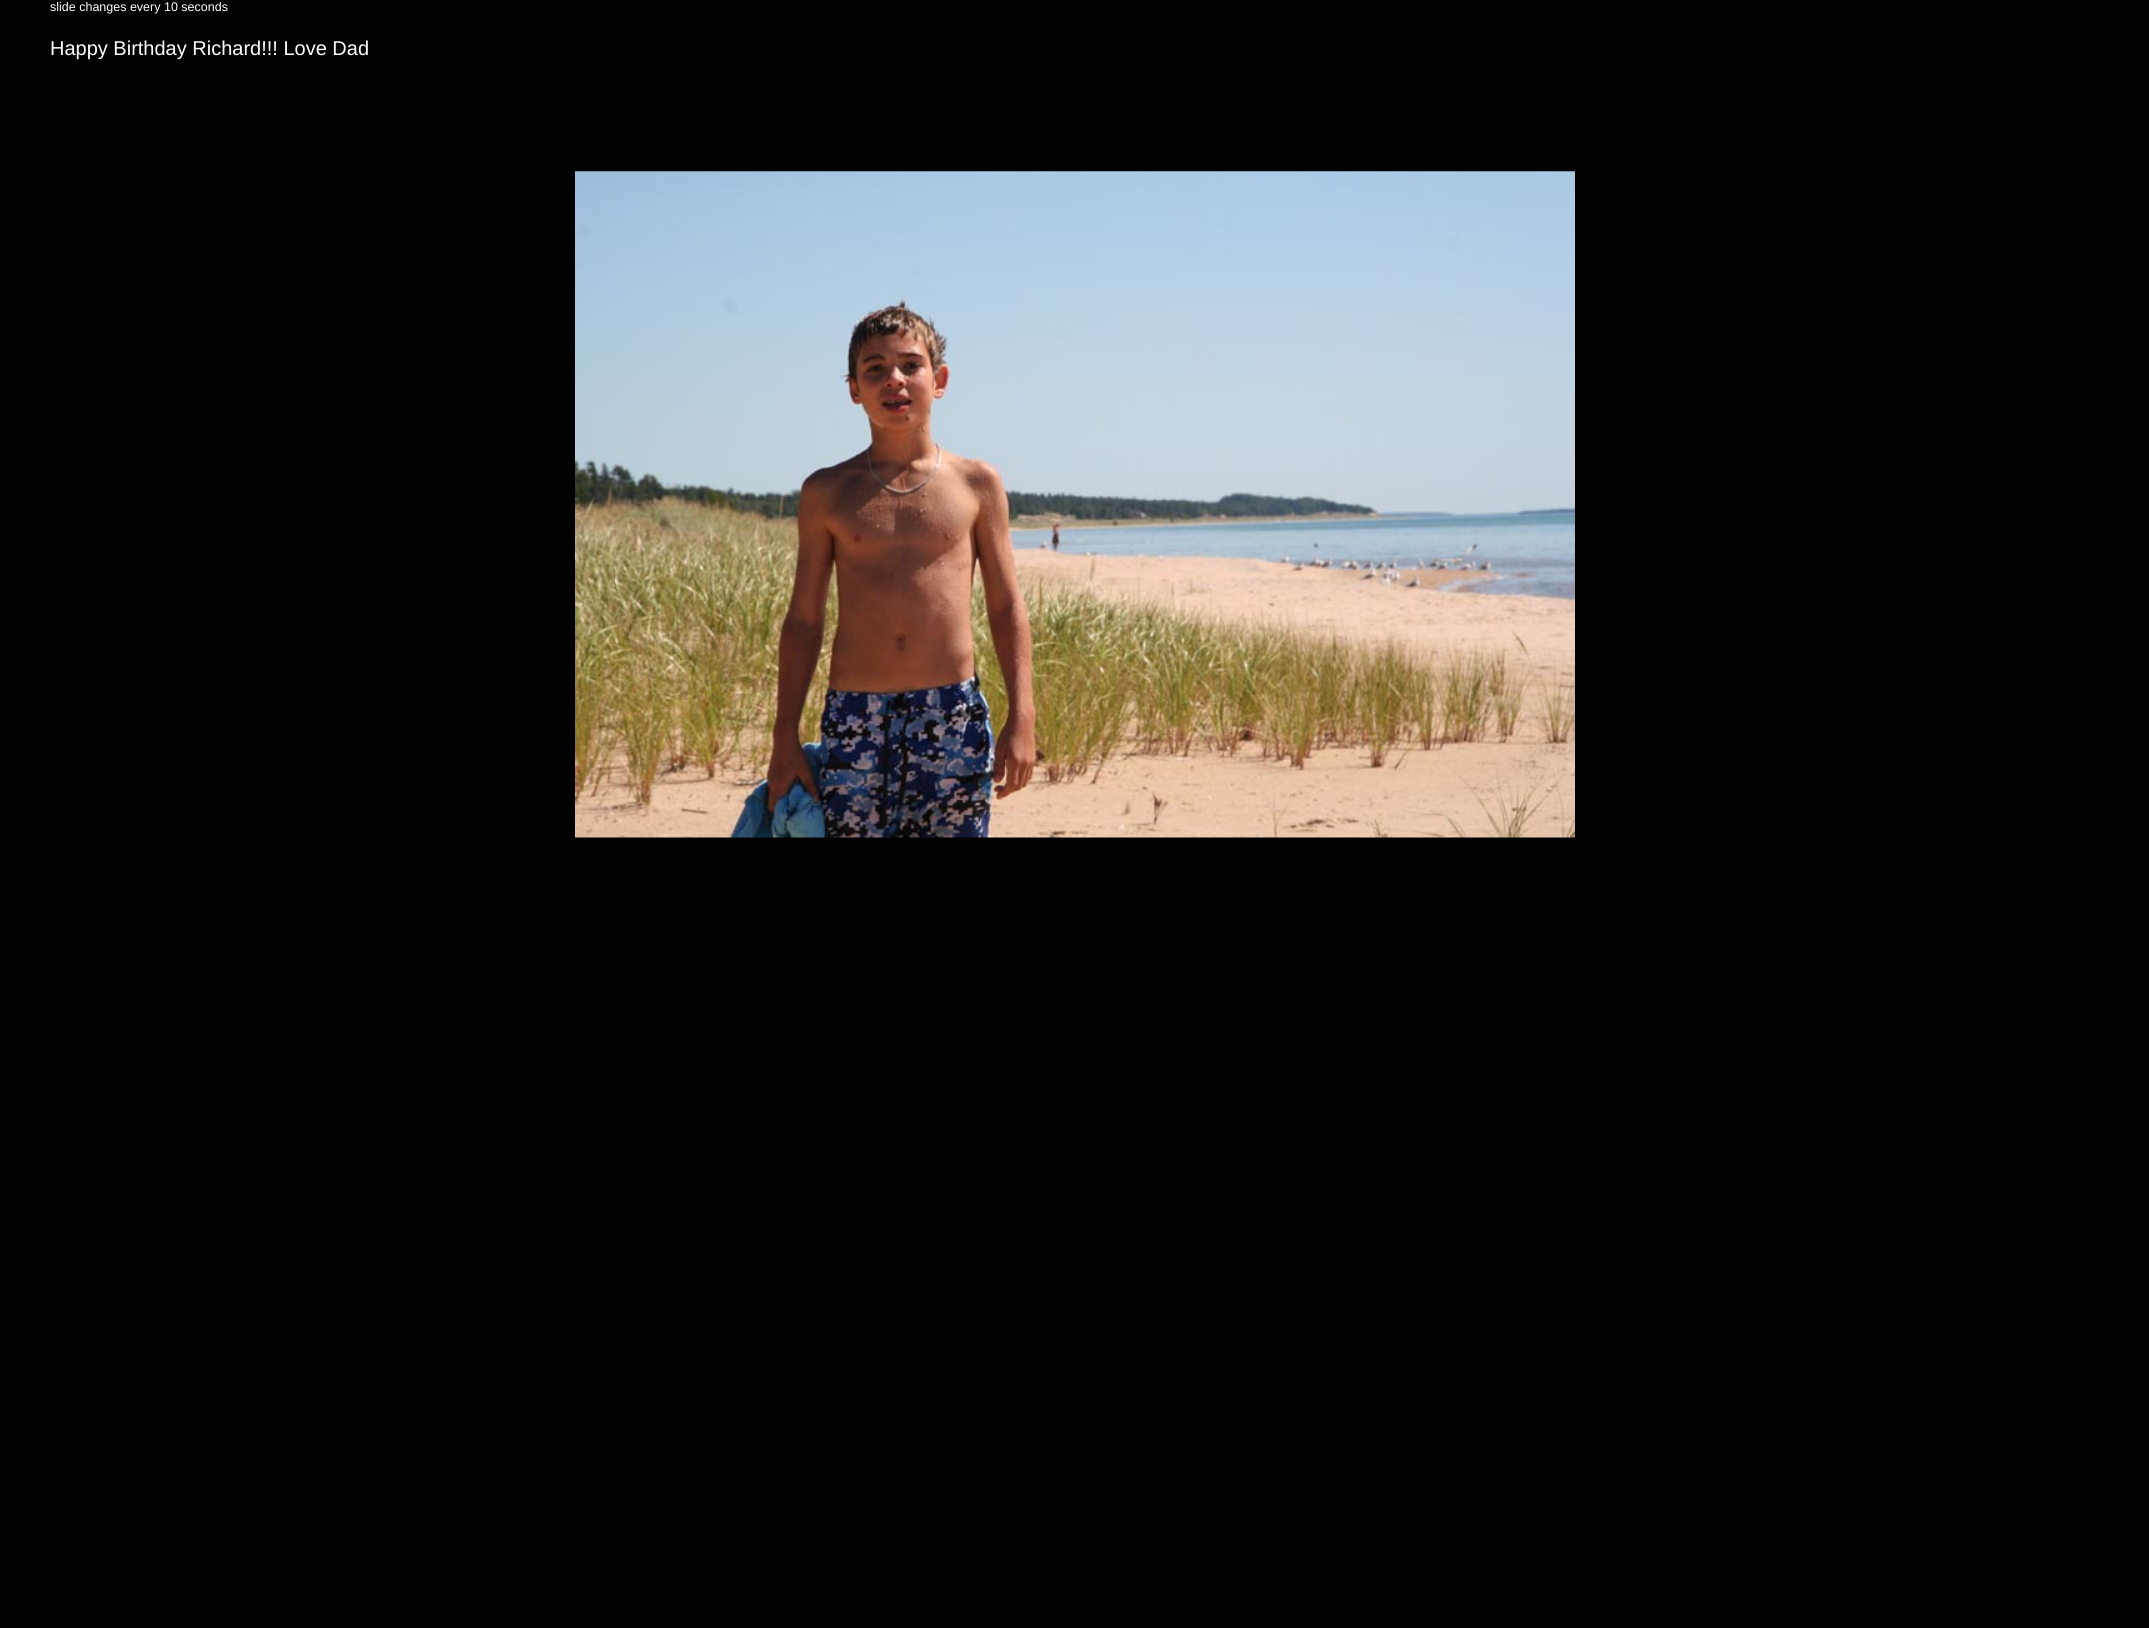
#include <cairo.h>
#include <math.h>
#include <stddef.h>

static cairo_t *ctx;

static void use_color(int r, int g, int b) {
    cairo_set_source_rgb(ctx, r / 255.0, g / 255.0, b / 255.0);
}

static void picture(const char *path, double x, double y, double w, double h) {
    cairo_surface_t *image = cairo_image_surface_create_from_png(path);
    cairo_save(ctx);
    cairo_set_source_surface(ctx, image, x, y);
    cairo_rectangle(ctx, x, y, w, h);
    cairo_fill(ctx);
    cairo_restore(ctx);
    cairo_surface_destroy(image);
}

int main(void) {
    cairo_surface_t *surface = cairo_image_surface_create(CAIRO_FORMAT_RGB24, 2149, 1628);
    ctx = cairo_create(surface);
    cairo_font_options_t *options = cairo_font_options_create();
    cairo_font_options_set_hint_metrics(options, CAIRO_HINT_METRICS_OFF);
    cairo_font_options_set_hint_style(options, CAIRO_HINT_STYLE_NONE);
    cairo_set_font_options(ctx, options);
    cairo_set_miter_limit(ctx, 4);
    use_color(0, 0, 0);
    cairo_paint(ctx);
    cairo_select_font_face(ctx, "Liberation Sans", CAIRO_FONT_SLANT_NORMAL, CAIRO_FONT_WEIGHT_NORMAL);
    cairo_set_font_size(ctx, 12.5);
    use_color(255, 255, 255);
    cairo_move_to(ctx, 50, 11);
    cairo_show_text(ctx, "slide changes every 10 seconds");
    cairo_set_font_size(ctx, 20);
    cairo_move_to(ctx, 50, 55);
    cairo_show_text(ctx, "Happy Birthday Richard!!! Love Dad");
    picture("img1.png", 575, 171, 1000, 667);
    cairo_surface_write_to_png(surface, "result.png");
    cairo_font_options_destroy(options);
    cairo_destroy(ctx);
    cairo_surface_destroy(surface);
    return 0;
}
